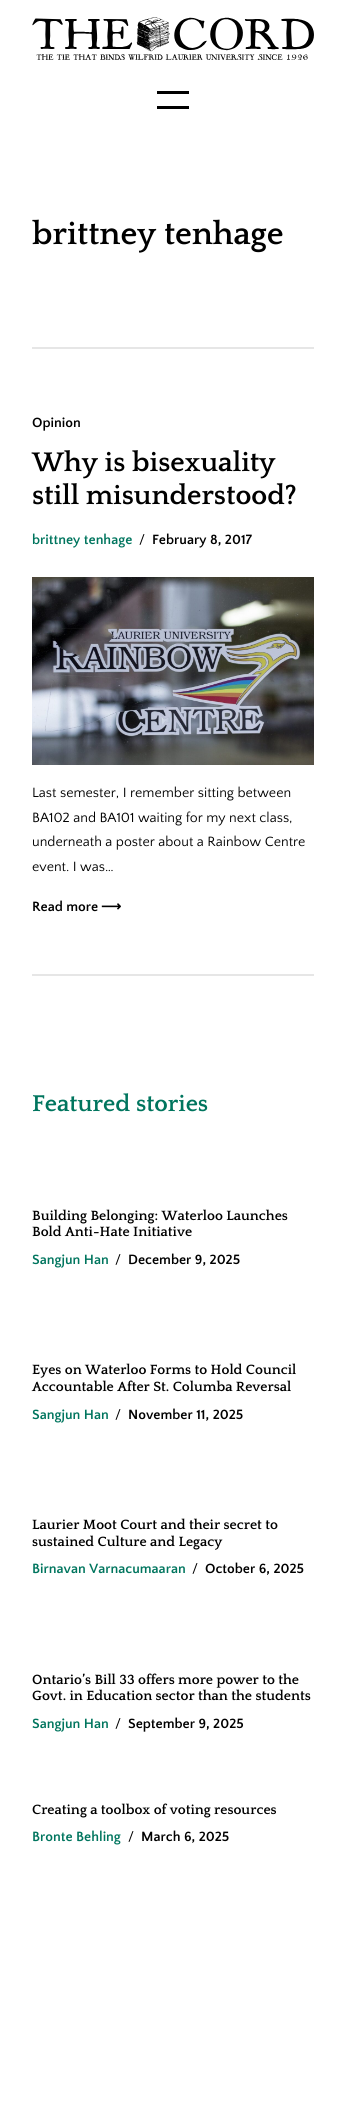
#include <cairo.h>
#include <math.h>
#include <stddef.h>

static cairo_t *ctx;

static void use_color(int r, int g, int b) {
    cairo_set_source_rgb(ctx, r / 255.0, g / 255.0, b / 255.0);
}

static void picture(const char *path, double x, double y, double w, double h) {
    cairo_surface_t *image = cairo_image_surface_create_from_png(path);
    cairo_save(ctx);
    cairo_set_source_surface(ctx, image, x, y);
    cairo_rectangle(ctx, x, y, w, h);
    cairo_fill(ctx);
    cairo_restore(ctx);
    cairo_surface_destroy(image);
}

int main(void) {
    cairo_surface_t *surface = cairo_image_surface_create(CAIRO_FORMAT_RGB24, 346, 2103);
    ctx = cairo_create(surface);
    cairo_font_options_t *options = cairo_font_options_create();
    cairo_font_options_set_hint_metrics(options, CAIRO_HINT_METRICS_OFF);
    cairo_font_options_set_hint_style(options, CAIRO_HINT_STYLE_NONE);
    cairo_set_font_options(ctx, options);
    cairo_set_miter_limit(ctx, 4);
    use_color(255, 255, 255);
    cairo_paint(ctx);
    picture("img1.png", 32, 17, 282, 43);
    use_color(0, 0, 0);
    cairo_rectangle(ctx, 157, 91, 32, 3);
    cairo_fill(ctx);
    cairo_rectangle(ctx, 157, 106, 32, 3);
    cairo_fill(ctx);
    cairo_select_font_face(ctx, "Quattrocento", CAIRO_FONT_SLANT_NORMAL, CAIRO_FONT_WEIGHT_BOLD);
    cairo_set_font_size(ctx, 33);
    cairo_move_to(ctx, 32, 244);
    cairo_show_text(ctx, "brittney tenhage");
    use_color(230, 230, 230);
    cairo_rectangle(ctx, 32, 347, 282, 2);
    cairo_fill(ctx);
    cairo_select_font_face(ctx, "Quattrocento Sans", CAIRO_FONT_SLANT_NORMAL, CAIRO_FONT_WEIGHT_BOLD);
    cairo_set_font_size(ctx, 14.1);
    use_color(0, 0, 0);
    cairo_move_to(ctx, 32, 427);
    cairo_show_text(ctx, "Opinion");
    cairo_select_font_face(ctx, "Quattrocento", CAIRO_FONT_SLANT_NORMAL, CAIRO_FONT_WEIGHT_BOLD);
    cairo_set_font_size(ctx, 28.25);
    cairo_move_to(ctx, 32, 471);
    cairo_show_text(ctx, "Why is bisexuality");
    cairo_move_to(ctx, 32, 504);
    cairo_show_text(ctx, "still misunderstood?");
    cairo_select_font_face(ctx, "Quattrocento Sans", CAIRO_FONT_SLANT_NORMAL, CAIRO_FONT_WEIGHT_BOLD);
    cairo_set_font_size(ctx, 14.1);
    use_color(0, 117, 94);
    cairo_move_to(ctx, 32, 544);
    cairo_show_text(ctx, "brittney tenhage");
    cairo_select_font_face(ctx, "Quattrocento Sans", CAIRO_FONT_SLANT_NORMAL, CAIRO_FONT_WEIGHT_NORMAL);
    use_color(0, 0, 0);
    cairo_move_to(ctx, 139, 544);
    cairo_show_text(ctx, "/");
    cairo_select_font_face(ctx, "Quattrocento Sans", CAIRO_FONT_SLANT_NORMAL, CAIRO_FONT_WEIGHT_BOLD);
    cairo_move_to(ctx, 152, 544);
    cairo_show_text(ctx, "February 8, 2017");
    picture("img2.png", 32, 577, 282, 188);
    cairo_select_font_face(ctx, "Quattrocento Sans", CAIRO_FONT_SLANT_NORMAL, CAIRO_FONT_WEIGHT_NORMAL);
    cairo_move_to(ctx, 32, 797);
    cairo_show_text(ctx, "Last semester, I remember sitting between");
    cairo_move_to(ctx, 32, 822);
    cairo_show_text(ctx, "BA102 and BA101 waiting for my next class,");
    cairo_move_to(ctx, 32, 846);
    cairo_show_text(ctx, "underneath a poster about a Rainbow Centre");
    cairo_move_to(ctx, 32, 871);
    cairo_show_text(ctx, "event. I was…");
    cairo_select_font_face(ctx, "Quattrocento Sans", CAIRO_FONT_SLANT_NORMAL, CAIRO_FONT_WEIGHT_BOLD);
    cairo_move_to(ctx, 32, 911);
    cairo_show_text(ctx, "Read more");
    cairo_select_font_face(ctx, "DejaVu Sans", CAIRO_FONT_SLANT_NORMAL, CAIRO_FONT_WEIGHT_BOLD);
    cairo_move_to(ctx, 101, 911);
    cairo_show_text(ctx, "⟶");
    use_color(230, 230, 230);
    cairo_rectangle(ctx, 32, 974, 282, 2);
    cairo_fill(ctx);
    cairo_select_font_face(ctx, "Quattrocento", CAIRO_FONT_SLANT_NORMAL, CAIRO_FONT_WEIGHT_BOLD);
    cairo_set_font_size(ctx, 24);
    use_color(0, 117, 94);
    cairo_move_to(ctx, 32, 1111);
    cairo_show_text(ctx, "Featured stories");
    cairo_set_font_size(ctx, 14.1);
    use_color(0, 0, 0);
    cairo_move_to(ctx, 32, 1220);
    cairo_show_text(ctx, "Building Belonging: Waterloo Launches");
    cairo_move_to(ctx, 32, 1236);
    cairo_show_text(ctx, "Bold Anti-Hate Initiative");
    cairo_select_font_face(ctx, "Quattrocento Sans", CAIRO_FONT_SLANT_NORMAL, CAIRO_FONT_WEIGHT_BOLD);
    use_color(0, 117, 94);
    cairo_move_to(ctx, 32, 1264);
    cairo_show_text(ctx, "Sangjun Han");
    cairo_select_font_face(ctx, "Quattrocento Sans", CAIRO_FONT_SLANT_NORMAL, CAIRO_FONT_WEIGHT_NORMAL);
    use_color(0, 0, 0);
    cairo_move_to(ctx, 115, 1264);
    cairo_show_text(ctx, "/");
    cairo_select_font_face(ctx, "Quattrocento Sans", CAIRO_FONT_SLANT_NORMAL, CAIRO_FONT_WEIGHT_BOLD);
    cairo_move_to(ctx, 128, 1264);
    cairo_show_text(ctx, "December 9, 2025");
    cairo_select_font_face(ctx, "Quattrocento", CAIRO_FONT_SLANT_NORMAL, CAIRO_FONT_WEIGHT_BOLD);
    cairo_move_to(ctx, 32, 1374);
    cairo_show_text(ctx, "Eyes on Waterloo Forms to Hold Council");
    cairo_move_to(ctx, 32, 1391);
    cairo_show_text(ctx, "Accountable After St. Columba Reversal");
    cairo_select_font_face(ctx, "Quattrocento Sans", CAIRO_FONT_SLANT_NORMAL, CAIRO_FONT_WEIGHT_BOLD);
    use_color(0, 117, 94);
    cairo_move_to(ctx, 32, 1419);
    cairo_show_text(ctx, "Sangjun Han");
    cairo_select_font_face(ctx, "Quattrocento Sans", CAIRO_FONT_SLANT_NORMAL, CAIRO_FONT_WEIGHT_NORMAL);
    use_color(0, 0, 0);
    cairo_move_to(ctx, 115, 1419);
    cairo_show_text(ctx, "/");
    cairo_select_font_face(ctx, "Quattrocento Sans", CAIRO_FONT_SLANT_NORMAL, CAIRO_FONT_WEIGHT_BOLD);
    cairo_move_to(ctx, 128, 1419);
    cairo_show_text(ctx, "November 11, 2025");
    cairo_select_font_face(ctx, "Quattrocento", CAIRO_FONT_SLANT_NORMAL, CAIRO_FONT_WEIGHT_BOLD);
    cairo_move_to(ctx, 32, 1529);
    cairo_show_text(ctx, "Laurier Moot Court and their secret to");
    cairo_move_to(ctx, 32, 1546);
    cairo_show_text(ctx, "sustained Culture and Legacy");
    cairo_select_font_face(ctx, "Quattrocento Sans", CAIRO_FONT_SLANT_NORMAL, CAIRO_FONT_WEIGHT_BOLD);
    use_color(0, 117, 94);
    cairo_move_to(ctx, 32, 1573);
    cairo_show_text(ctx, "Birnavan Varnacumaaran");
    cairo_select_font_face(ctx, "Quattrocento Sans", CAIRO_FONT_SLANT_NORMAL, CAIRO_FONT_WEIGHT_NORMAL);
    use_color(0, 0, 0);
    cairo_move_to(ctx, 192, 1573);
    cairo_show_text(ctx, "/");
    cairo_select_font_face(ctx, "Quattrocento Sans", CAIRO_FONT_SLANT_NORMAL, CAIRO_FONT_WEIGHT_BOLD);
    cairo_move_to(ctx, 205, 1573);
    cairo_show_text(ctx, "October 6, 2025");
    cairo_select_font_face(ctx, "Quattrocento", CAIRO_FONT_SLANT_NORMAL, CAIRO_FONT_WEIGHT_BOLD);
    cairo_move_to(ctx, 32, 1684);
    cairo_show_text(ctx, "Ontario’s Bill 33 offers more power to the");
    cairo_move_to(ctx, 32, 1700);
    cairo_show_text(ctx, "Govt. in Education sector than the students");
    cairo_select_font_face(ctx, "Quattrocento Sans", CAIRO_FONT_SLANT_NORMAL, CAIRO_FONT_WEIGHT_BOLD);
    use_color(0, 117, 94);
    cairo_move_to(ctx, 32, 1728);
    cairo_show_text(ctx, "Sangjun Han");
    cairo_select_font_face(ctx, "Quattrocento Sans", CAIRO_FONT_SLANT_NORMAL, CAIRO_FONT_WEIGHT_NORMAL);
    use_color(0, 0, 0);
    cairo_move_to(ctx, 115, 1728);
    cairo_show_text(ctx, "/");
    cairo_select_font_face(ctx, "Quattrocento Sans", CAIRO_FONT_SLANT_NORMAL, CAIRO_FONT_WEIGHT_BOLD);
    cairo_move_to(ctx, 128, 1728);
    cairo_show_text(ctx, "September 9, 2025");
    cairo_select_font_face(ctx, "Quattrocento", CAIRO_FONT_SLANT_NORMAL, CAIRO_FONT_WEIGHT_BOLD);
    cairo_move_to(ctx, 32, 1814);
    cairo_show_text(ctx, "Creating a toolbox of voting resources");
    cairo_select_font_face(ctx, "Quattrocento Sans", CAIRO_FONT_SLANT_NORMAL, CAIRO_FONT_WEIGHT_BOLD);
    use_color(0, 117, 94);
    cairo_move_to(ctx, 32, 1841);
    cairo_show_text(ctx, "Bronte Behling");
    cairo_select_font_face(ctx, "Quattrocento Sans", CAIRO_FONT_SLANT_NORMAL, CAIRO_FONT_WEIGHT_NORMAL);
    use_color(0, 0, 0);
    cairo_move_to(ctx, 128, 1841);
    cairo_show_text(ctx, "/");
    cairo_select_font_face(ctx, "Quattrocento Sans", CAIRO_FONT_SLANT_NORMAL, CAIRO_FONT_WEIGHT_BOLD);
    cairo_move_to(ctx, 141, 1841);
    cairo_show_text(ctx, "March 6, 2025");
    cairo_surface_write_to_png(surface, "result.png");
    cairo_font_options_destroy(options);
    cairo_destroy(ctx);
    cairo_surface_destroy(surface);
    return 0;
}
